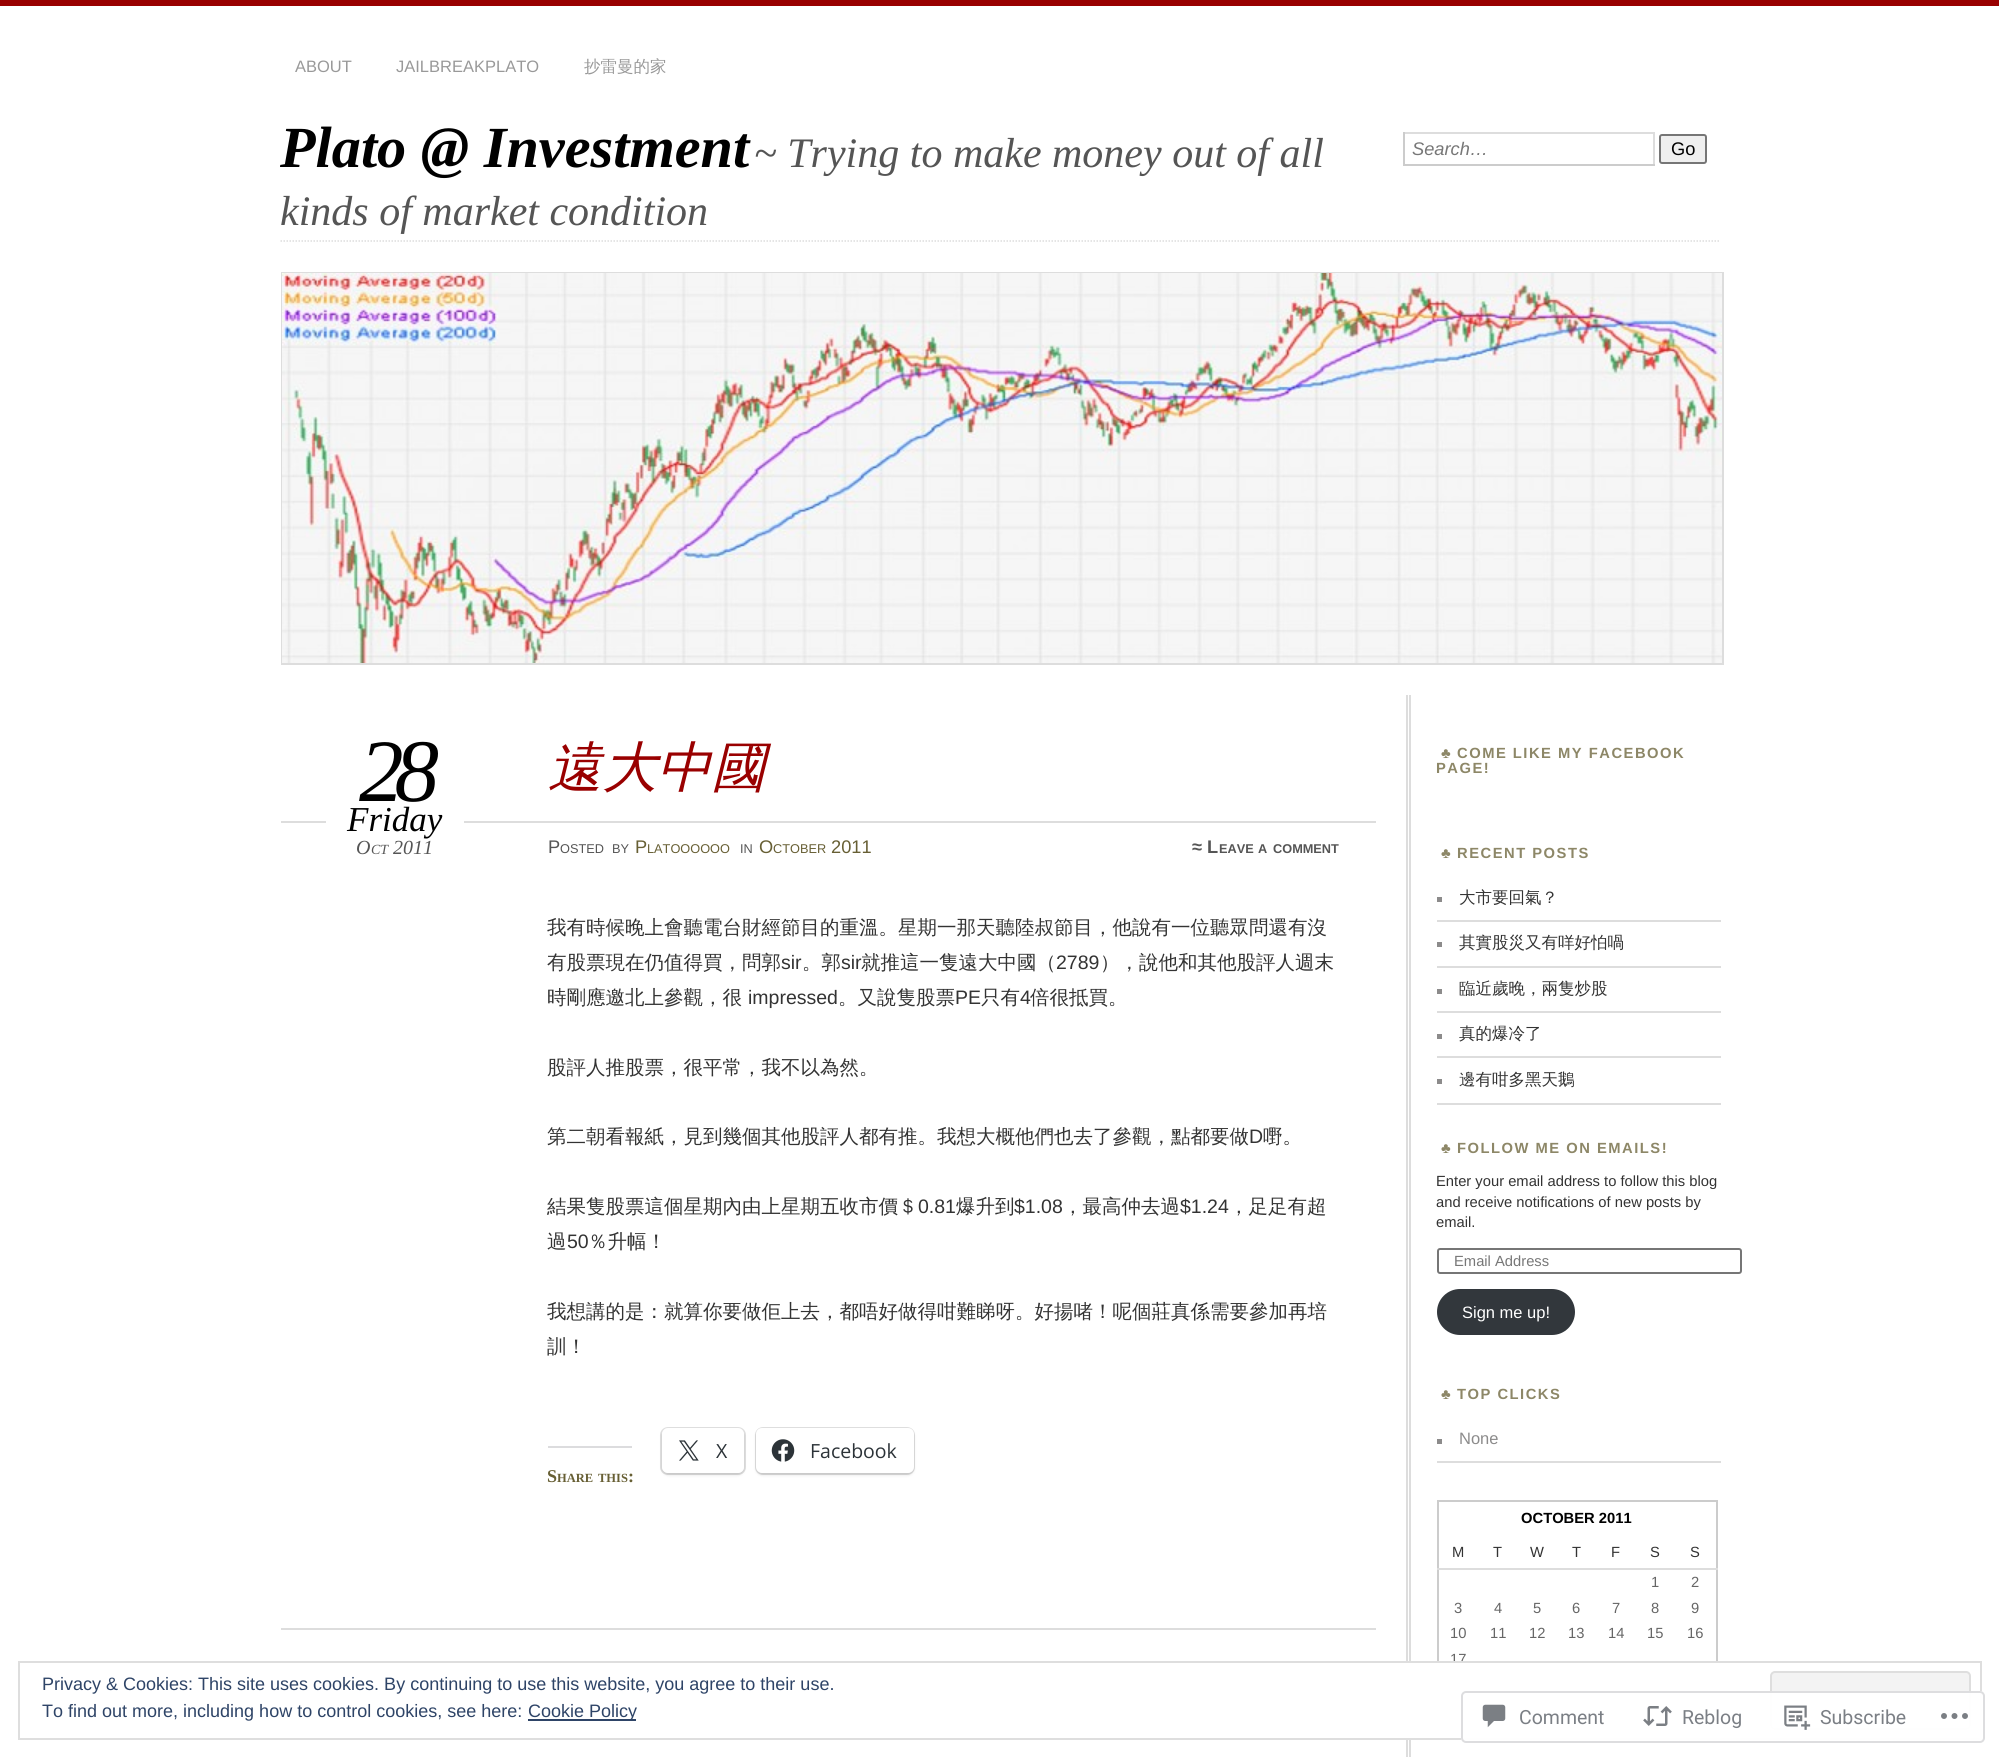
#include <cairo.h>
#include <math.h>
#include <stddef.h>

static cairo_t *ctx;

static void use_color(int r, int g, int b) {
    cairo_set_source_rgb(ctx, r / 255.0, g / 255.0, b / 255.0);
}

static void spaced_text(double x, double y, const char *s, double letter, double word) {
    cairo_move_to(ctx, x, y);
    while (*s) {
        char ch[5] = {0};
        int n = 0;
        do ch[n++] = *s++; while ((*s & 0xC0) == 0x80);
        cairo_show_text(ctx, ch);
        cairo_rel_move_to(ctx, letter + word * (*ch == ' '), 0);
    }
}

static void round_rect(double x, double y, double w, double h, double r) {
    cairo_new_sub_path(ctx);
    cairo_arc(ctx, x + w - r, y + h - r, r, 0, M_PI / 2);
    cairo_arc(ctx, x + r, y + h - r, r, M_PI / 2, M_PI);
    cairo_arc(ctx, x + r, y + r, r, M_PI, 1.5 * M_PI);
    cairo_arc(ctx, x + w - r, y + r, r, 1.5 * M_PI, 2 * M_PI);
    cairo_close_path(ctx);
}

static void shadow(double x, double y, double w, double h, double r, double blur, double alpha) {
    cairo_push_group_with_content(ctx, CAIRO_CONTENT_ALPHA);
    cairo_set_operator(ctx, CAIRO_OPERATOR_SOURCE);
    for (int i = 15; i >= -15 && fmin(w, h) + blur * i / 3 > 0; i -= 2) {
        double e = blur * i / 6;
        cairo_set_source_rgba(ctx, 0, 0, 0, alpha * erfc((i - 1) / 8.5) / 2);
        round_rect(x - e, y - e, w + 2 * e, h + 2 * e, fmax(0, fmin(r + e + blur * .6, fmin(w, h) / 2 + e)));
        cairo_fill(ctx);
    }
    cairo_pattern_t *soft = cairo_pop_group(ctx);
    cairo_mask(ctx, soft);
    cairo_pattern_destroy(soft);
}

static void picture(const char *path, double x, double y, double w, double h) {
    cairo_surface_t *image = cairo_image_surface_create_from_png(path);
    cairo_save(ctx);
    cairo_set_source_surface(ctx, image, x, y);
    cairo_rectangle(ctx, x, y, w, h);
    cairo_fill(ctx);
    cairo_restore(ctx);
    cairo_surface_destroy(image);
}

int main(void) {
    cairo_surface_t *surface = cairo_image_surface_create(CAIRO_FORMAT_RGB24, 1999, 1757);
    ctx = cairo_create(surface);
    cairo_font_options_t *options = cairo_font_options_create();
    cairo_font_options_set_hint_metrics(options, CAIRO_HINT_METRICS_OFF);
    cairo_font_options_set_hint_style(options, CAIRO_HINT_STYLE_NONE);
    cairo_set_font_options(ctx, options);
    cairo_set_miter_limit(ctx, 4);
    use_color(255, 255, 255);
    cairo_paint(ctx);
    use_color(153, 0, 0);
    cairo_rectangle(ctx, 0, 0, 1999, 6);
    cairo_fill(ctx);
    cairo_select_font_face(ctx, "Liberation Sans", CAIRO_FONT_SLANT_NORMAL, CAIRO_FONT_WEIGHT_NORMAL);
    cairo_set_font_size(ctx, 16.5);
    use_color(153, 153, 153);
    cairo_move_to(ctx, 295, 72);
    cairo_show_text(ctx, "ABOUT");
    cairo_move_to(ctx, 396, 72);
    cairo_show_text(ctx, "JAILBREAKPLATO");
    cairo_select_font_face(ctx, "WenQuanYi Zen Hei Medium", CAIRO_FONT_SLANT_NORMAL, CAIRO_FONT_WEIGHT_NORMAL);
    cairo_move_to(ctx, 584, 72);
    cairo_show_text(ctx, "抄雷曼的家");
    cairo_select_font_face(ctx, "Liberation Serif", CAIRO_FONT_SLANT_ITALIC, CAIRO_FONT_WEIGHT_BOLD);
    cairo_set_font_size(ctx, 58.25);
    use_color(0, 0, 0);
    cairo_move_to(ctx, 280, 167);
    cairo_show_text(ctx, "Plato @ Investment");
    cairo_select_font_face(ctx, "Liberation Serif", CAIRO_FONT_SLANT_ITALIC, CAIRO_FONT_WEIGHT_NORMAL);
    cairo_set_font_size(ctx, 42);
    use_color(85, 85, 85);
    cairo_move_to(ctx, 754, 167);
    cairo_show_text(ctx, "~ Trying to make money out of all");
    cairo_move_to(ctx, 280, 225);
    cairo_show_text(ctx, "kinds of market condition");
    use_color(221, 221, 221);
    cairo_rectangle(ctx, 1403, 132, 252, 2);
    cairo_fill(ctx);
    cairo_rectangle(ctx, 1653, 132, 2, 33);
    cairo_fill(ctx);
    use_color(204, 204, 204);
    cairo_rectangle(ctx, 1403, 164, 252, 2);
    cairo_fill(ctx);
    cairo_rectangle(ctx, 1403, 132, 2, 33);
    cairo_fill(ctx);
    cairo_select_font_face(ctx, "Liberation Sans", CAIRO_FONT_SLANT_ITALIC, CAIRO_FONT_WEIGHT_NORMAL);
    cairo_set_font_size(ctx, 18.25);
    use_color(119, 119, 119);
    cairo_move_to(ctx, 1412, 155);
    cairo_show_text(ctx, "Search…");
    use_color(239, 239, 239);
    round_rect(1660, 135, 46, 28, 2);
    cairo_fill_preserve(ctx);
    use_color(118, 118, 118);
    cairo_stroke(ctx);
    cairo_select_font_face(ctx, "Liberation Sans", CAIRO_FONT_SLANT_NORMAL, CAIRO_FONT_WEIGHT_NORMAL);
    use_color(0, 0, 0);
    cairo_move_to(ctx, 1671, 155);
    cairo_show_text(ctx, "Go");
    cairo_new_path(ctx);
    cairo_move_to(ctx, 280.5, 241);
    cairo_line_to(ctx, 1720.5, 241);
    use_color(221, 221, 221);
    cairo_set_line_width(ctx, 1.5);
    cairo_set_dash(ctx, (double[]){1.5, 1.5}, 2, 0);
    cairo_stroke(ctx);
    cairo_rectangle(ctx, 282, 273, 1441, 391);
    cairo_set_line_width(ctx, 2);
    cairo_set_dash(ctx, NULL, 0, 0);
    cairo_stroke(ctx);
    picture("img1.png", 282, 273, 1440, 390);
    cairo_rectangle(ctx, 1406, 695, 2, 1062);
    cairo_fill(ctx);
    cairo_rectangle(ctx, 1409, 695, 2, 1062);
    cairo_fill(ctx);
    cairo_rectangle(ctx, 281, 1628, 1095, 2);
    cairo_fill(ctx);
    cairo_select_font_face(ctx, "Liberation Serif", CAIRO_FONT_SLANT_ITALIC, CAIRO_FONT_WEIGHT_NORMAL);
    cairo_set_font_size(ctx, 89);
    use_color(0, 0, 0);
    spaced_text(359, 801, "28", -9, 0);
    use_color(221, 221, 221);
    cairo_rectangle(ctx, 281, 821, 1095, 2);
    cairo_fill(ctx);
    use_color(255, 255, 255);
    cairo_rectangle(ctx, 326, 821, 138, 2);
    cairo_fill(ctx);
    cairo_set_font_size(ctx, 35);
    use_color(0, 0, 0);
    cairo_move_to(ctx, 347, 831);
    cairo_show_text(ctx, "Friday");
    cairo_set_font_size(ctx, 20);
    use_color(85, 85, 85);
    cairo_move_to(ctx, 356, 854);
    cairo_show_text(ctx, "O");
    cairo_set_font_size(ctx, 14);
    cairo_move_to(ctx, 371, 854);
    cairo_show_text(ctx, "CT");
    cairo_set_font_size(ctx, 20);
    cairo_move_to(ctx, 393, 854);
    cairo_show_text(ctx, "2011");
    cairo_select_font_face(ctx, "WenQuanYi Zen Hei Medium", CAIRO_FONT_SLANT_ITALIC, CAIRO_FONT_WEIGHT_NORMAL);
    cairo_set_font_size(ctx, 54.5);
    use_color(153, 0, 0);
    cairo_move_to(ctx, 548, 786);
    cairo_show_text(ctx, "遠大中國");
    cairo_select_font_face(ctx, "Liberation Sans", CAIRO_FONT_SLANT_NORMAL, CAIRO_FONT_WEIGHT_NORMAL);
    cairo_set_font_size(ctx, 18.25);
    use_color(85, 85, 85);
    cairo_move_to(ctx, 548, 853);
    cairo_show_text(ctx, "P");
    cairo_set_font_size(ctx, 12.75);
    cairo_move_to(ctx, 560, 853);
    cairo_show_text(ctx, "OSTED");
    cairo_move_to(ctx, 612, 853);
    cairo_show_text(ctx, "BY");
    cairo_set_font_size(ctx, 18.25);
    use_color(103, 95, 52);
    cairo_move_to(ctx, 635, 853);
    cairo_show_text(ctx, "P");
    cairo_set_font_size(ctx, 12.75);
    cairo_move_to(ctx, 647, 853);
    cairo_show_text(ctx, "LATOOOOOO");
    use_color(85, 85, 85);
    cairo_move_to(ctx, 740, 853);
    cairo_show_text(ctx, "IN");
    cairo_set_font_size(ctx, 18.25);
    use_color(103, 95, 52);
    cairo_move_to(ctx, 759, 853);
    cairo_show_text(ctx, "O");
    cairo_set_font_size(ctx, 12.75);
    cairo_move_to(ctx, 773, 853);
    cairo_show_text(ctx, "CTOBER");
    cairo_set_font_size(ctx, 18.25);
    cairo_move_to(ctx, 831, 853);
    cairo_show_text(ctx, "2011");
    cairo_select_font_face(ctx, "Liberation Sans", CAIRO_FONT_SLANT_NORMAL, CAIRO_FONT_WEIGHT_BOLD);
    use_color(85, 85, 85);
    cairo_move_to(ctx, 1192, 853);
    cairo_show_text(ctx, "≈ L");
    cairo_set_font_size(ctx, 12.75);
    cairo_move_to(ctx, 1219, 853);
    cairo_show_text(ctx, "EAVE");
    cairo_move_to(ctx, 1258, 853);
    cairo_show_text(ctx, "A");
    cairo_move_to(ctx, 1273, 853);
    cairo_show_text(ctx, "COMMENT");
    cairo_select_font_face(ctx, "WenQuanYi Zen Hei Medium", CAIRO_FONT_SLANT_NORMAL, CAIRO_FONT_WEIGHT_NORMAL);
    cairo_set_font_size(ctx, 19.5);
    use_color(51, 51, 51);
    cairo_move_to(ctx, 547, 934);
    cairo_show_text(ctx, "我有時候晚上會聽電台財經節目的重溫。星期一那天聽陸叔節目，他說有一位聽眾問還有沒");
    cairo_move_to(ctx, 547, 969);
    cairo_show_text(ctx, "有股票現在仍值得買，問郭");
    cairo_select_font_face(ctx, "Liberation Sans", CAIRO_FONT_SLANT_NORMAL, CAIRO_FONT_WEIGHT_NORMAL);
    cairo_move_to(ctx, 781, 969);
    cairo_show_text(ctx, "sir");
    cairo_select_font_face(ctx, "WenQuanYi Zen Hei Medium", CAIRO_FONT_SLANT_NORMAL, CAIRO_FONT_WEIGHT_NORMAL);
    cairo_move_to(ctx, 802, 969);
    cairo_show_text(ctx, "。郭");
    cairo_select_font_face(ctx, "Liberation Sans", CAIRO_FONT_SLANT_NORMAL, CAIRO_FONT_WEIGHT_NORMAL);
    cairo_move_to(ctx, 841, 969);
    cairo_show_text(ctx, "sir");
    cairo_select_font_face(ctx, "WenQuanYi Zen Hei Medium", CAIRO_FONT_SLANT_NORMAL, CAIRO_FONT_WEIGHT_NORMAL);
    cairo_move_to(ctx, 861, 969);
    cairo_show_text(ctx, "就推這一隻遠大中國（");
    cairo_select_font_face(ctx, "Liberation Sans", CAIRO_FONT_SLANT_NORMAL, CAIRO_FONT_WEIGHT_NORMAL);
    cairo_move_to(ctx, 1056, 969);
    cairo_show_text(ctx, "2789");
    cairo_select_font_face(ctx, "WenQuanYi Zen Hei Medium", CAIRO_FONT_SLANT_NORMAL, CAIRO_FONT_WEIGHT_NORMAL);
    cairo_move_to(ctx, 1100, 969);
    cairo_show_text(ctx, "），說他和其他股評人週末");
    cairo_move_to(ctx, 547, 1004);
    cairo_show_text(ctx, "時剛應邀北上參觀，很");
    cairo_select_font_face(ctx, "Liberation Sans", CAIRO_FONT_SLANT_NORMAL, CAIRO_FONT_WEIGHT_NORMAL);
    cairo_move_to(ctx, 748, 1004);
    cairo_show_text(ctx, "impressed");
    cairo_select_font_face(ctx, "WenQuanYi Zen Hei Medium", CAIRO_FONT_SLANT_NORMAL, CAIRO_FONT_WEIGHT_NORMAL);
    cairo_move_to(ctx, 838, 1004);
    cairo_show_text(ctx, "。又說隻股票");
    cairo_select_font_face(ctx, "Liberation Sans", CAIRO_FONT_SLANT_NORMAL, CAIRO_FONT_WEIGHT_NORMAL);
    cairo_move_to(ctx, 955, 1004);
    cairo_show_text(ctx, "PE");
    cairo_select_font_face(ctx, "WenQuanYi Zen Hei Medium", CAIRO_FONT_SLANT_NORMAL, CAIRO_FONT_WEIGHT_NORMAL);
    cairo_move_to(ctx, 981, 1004);
    cairo_show_text(ctx, "只有");
    cairo_select_font_face(ctx, "Liberation Sans", CAIRO_FONT_SLANT_NORMAL, CAIRO_FONT_WEIGHT_NORMAL);
    cairo_move_to(ctx, 1020, 1004);
    cairo_show_text(ctx, "4");
    cairo_select_font_face(ctx, "WenQuanYi Zen Hei Medium", CAIRO_FONT_SLANT_NORMAL, CAIRO_FONT_WEIGHT_NORMAL);
    cairo_move_to(ctx, 1030, 1004);
    cairo_show_text(ctx, "倍很抵買。");
    cairo_move_to(ctx, 547, 1074);
    cairo_show_text(ctx, "股評人推股票，很平常，我不以為然。");
    cairo_move_to(ctx, 547, 1143);
    cairo_show_text(ctx, "第二朝看報紙，見到幾個其他股評人都有推。我想大概他們也去了參觀，點都要做");
    cairo_select_font_face(ctx, "Liberation Sans", CAIRO_FONT_SLANT_NORMAL, CAIRO_FONT_WEIGHT_NORMAL);
    cairo_move_to(ctx, 1249, 1143);
    cairo_show_text(ctx, "D");
    cairo_select_font_face(ctx, "WenQuanYi Zen Hei Medium", CAIRO_FONT_SLANT_NORMAL, CAIRO_FONT_WEIGHT_NORMAL);
    cairo_move_to(ctx, 1263, 1143);
    cairo_show_text(ctx, "嘢。");
    cairo_move_to(ctx, 547, 1213);
    cairo_show_text(ctx, "結果隻股票這個星期內由上星期五收市價＄");
    cairo_select_font_face(ctx, "Liberation Sans", CAIRO_FONT_SLANT_NORMAL, CAIRO_FONT_WEIGHT_NORMAL);
    cairo_move_to(ctx, 918, 1213);
    cairo_show_text(ctx, "0.81");
    cairo_select_font_face(ctx, "WenQuanYi Zen Hei Medium", CAIRO_FONT_SLANT_NORMAL, CAIRO_FONT_WEIGHT_NORMAL);
    cairo_move_to(ctx, 956, 1213);
    cairo_show_text(ctx, "爆升到");
    cairo_select_font_face(ctx, "Liberation Sans", CAIRO_FONT_SLANT_NORMAL, CAIRO_FONT_WEIGHT_NORMAL);
    cairo_move_to(ctx, 1014, 1213);
    cairo_show_text(ctx, "$1.08");
    cairo_select_font_face(ctx, "WenQuanYi Zen Hei Medium", CAIRO_FONT_SLANT_NORMAL, CAIRO_FONT_WEIGHT_NORMAL);
    cairo_move_to(ctx, 1063, 1213);
    cairo_show_text(ctx, "，最高仲去過");
    cairo_select_font_face(ctx, "Liberation Sans", CAIRO_FONT_SLANT_NORMAL, CAIRO_FONT_WEIGHT_NORMAL);
    cairo_move_to(ctx, 1180, 1213);
    cairo_show_text(ctx, "$1.24");
    cairo_select_font_face(ctx, "WenQuanYi Zen Hei Medium", CAIRO_FONT_SLANT_NORMAL, CAIRO_FONT_WEIGHT_NORMAL);
    cairo_move_to(ctx, 1229, 1213);
    cairo_show_text(ctx, "，足足有超");
    cairo_move_to(ctx, 547, 1248);
    cairo_show_text(ctx, "過");
    cairo_select_font_face(ctx, "Liberation Sans", CAIRO_FONT_SLANT_NORMAL, CAIRO_FONT_WEIGHT_NORMAL);
    cairo_move_to(ctx, 567, 1248);
    cairo_show_text(ctx, "50");
    cairo_select_font_face(ctx, "WenQuanYi Zen Hei Medium", CAIRO_FONT_SLANT_NORMAL, CAIRO_FONT_WEIGHT_NORMAL);
    cairo_move_to(ctx, 588, 1248);
    cairo_show_text(ctx, "％升幅！");
    cairo_move_to(ctx, 547, 1318);
    cairo_show_text(ctx, "我想講的是：就算你要做佢上去，都唔好做得咁難睇呀。好揚啫！呢個莊真係需要參加再培");
    cairo_move_to(ctx, 547, 1353);
    cairo_show_text(ctx, "訓！");
    round_rect(661, 1428, 84, 46, 7);
    use_color(224, 224, 224);
    cairo_stroke(ctx);
    use_color(0, 0, 0);
    shadow(662, 1430, 82, 45, 6, 1.5, 0.12);
    use_color(255, 255, 255);
    round_rect(662, 1428, 82, 45, 6);
    cairo_fill(ctx);
    picture("img2.png", 679, 1440, 20, 21);
    cairo_select_font_face(ctx, "Open Sans", CAIRO_FONT_SLANT_NORMAL, CAIRO_FONT_WEIGHT_NORMAL);
    use_color(44, 51, 56);
    cairo_move_to(ctx, 716, 1458);
    cairo_show_text(ctx, "X");
    round_rect(756, 1428, 158, 46, 7);
    use_color(224, 224, 224);
    cairo_stroke(ctx);
    use_color(0, 0, 0);
    shadow(756, 1430, 158, 45, 6, 1.5, 0.12);
    use_color(255, 255, 255);
    round_rect(756, 1428, 158, 45, 6);
    cairo_fill(ctx);
    picture("img3.png", 771, 1439, 24, 23);
    use_color(44, 51, 56);
    cairo_move_to(ctx, 810, 1458);
    cairo_show_text(ctx, "Facebook");
    use_color(220, 220, 222);
    cairo_rectangle(ctx, 548, 1446, 84, 2);
    cairo_fill(ctx);
    cairo_select_font_face(ctx, "Liberation Serif", CAIRO_FONT_SLANT_NORMAL, CAIRO_FONT_WEIGHT_BOLD);
    cairo_set_font_size(ctx, 18);
    use_color(103, 95, 52);
    cairo_move_to(ctx, 547, 1482);
    cairo_show_text(ctx, "S");
    cairo_set_font_size(ctx, 12.5);
    cairo_move_to(ctx, 557, 1482);
    cairo_show_text(ctx, "HARE");
    cairo_move_to(ctx, 598, 1482);
    cairo_show_text(ctx, "THIS");
    cairo_set_font_size(ctx, 18);
    cairo_move_to(ctx, 628, 1482);
    cairo_show_text(ctx, ":");
    cairo_select_font_face(ctx, "Liberation Sans", CAIRO_FONT_SLANT_NORMAL, CAIRO_FONT_WEIGHT_BOLD);
    cairo_set_font_size(ctx, 14.75);
    use_color(141, 135, 103);
    spaced_text(1441, 758, "♣", 1.5, 0);
    spaced_text(1457, 758, "COME LIKE MY FACEBOOK", 1.5, 0);
    spaced_text(1436, 773, "PAGE!", 1.5, 0);
    spaced_text(1441, 858, "♣", 1.5, 0);
    spaced_text(1457, 858, "RECENT POSTS", 1.5, 0);
    use_color(221, 221, 221);
    cairo_rectangle(ctx, 1437, 920, 284, 2);
    cairo_fill(ctx);
    use_color(140, 139, 139);
    cairo_rectangle(ctx, 1437, 897, 5, 5);
    cairo_fill(ctx);
    cairo_select_font_face(ctx, "WenQuanYi Zen Hei Medium", CAIRO_FONT_SLANT_NORMAL, CAIRO_FONT_WEIGHT_NORMAL);
    cairo_set_font_size(ctx, 16.5);
    use_color(51, 51, 51);
    cairo_move_to(ctx, 1459, 903);
    cairo_show_text(ctx, "大市要回氣？");
    use_color(221, 221, 221);
    cairo_rectangle(ctx, 1437, 966, 284, 2);
    cairo_fill(ctx);
    use_color(140, 139, 139);
    cairo_rectangle(ctx, 1437, 942, 5, 5);
    cairo_fill(ctx);
    use_color(51, 51, 51);
    cairo_move_to(ctx, 1459, 948);
    cairo_show_text(ctx, "其實股災又有咩好怕喎");
    use_color(221, 221, 221);
    cairo_rectangle(ctx, 1437, 1011, 284, 2);
    cairo_fill(ctx);
    use_color(140, 139, 139);
    cairo_rectangle(ctx, 1437, 989, 5, 5);
    cairo_fill(ctx);
    use_color(51, 51, 51);
    cairo_move_to(ctx, 1459, 994);
    cairo_show_text(ctx, "臨近歲晚，兩隻炒股");
    use_color(221, 221, 221);
    cairo_rectangle(ctx, 1437, 1056, 284, 2);
    cairo_fill(ctx);
    use_color(140, 139, 139);
    cairo_rectangle(ctx, 1437, 1034, 5, 5);
    cairo_fill(ctx);
    use_color(51, 51, 51);
    cairo_move_to(ctx, 1459, 1039);
    cairo_show_text(ctx, "真的爆冷了");
    use_color(221, 221, 221);
    cairo_rectangle(ctx, 1437, 1103, 284, 2);
    cairo_fill(ctx);
    use_color(140, 139, 139);
    cairo_rectangle(ctx, 1437, 1079, 5, 5);
    cairo_fill(ctx);
    use_color(51, 51, 51);
    cairo_move_to(ctx, 1459, 1085);
    cairo_show_text(ctx, "邊有咁多黑天鵝");
    cairo_select_font_face(ctx, "Liberation Sans", CAIRO_FONT_SLANT_NORMAL, CAIRO_FONT_WEIGHT_BOLD);
    cairo_set_font_size(ctx, 14.75);
    use_color(141, 135, 103);
    spaced_text(1441, 1153, "♣", 1.5, 0);
    spaced_text(1457, 1153, "FOLLOW ME ON EMAILS!", 1.5, 0);
    cairo_select_font_face(ctx, "Liberation Sans", CAIRO_FONT_SLANT_NORMAL, CAIRO_FONT_WEIGHT_NORMAL);
    use_color(51, 51, 51);
    cairo_move_to(ctx, 1436, 1186);
    cairo_show_text(ctx, "Enter your email address to follow this blog");
    cairo_move_to(ctx, 1436, 1207);
    cairo_show_text(ctx, "and receive notifications of new posts by");
    cairo_move_to(ctx, 1436, 1227);
    cairo_show_text(ctx, "email.");
    round_rect(1438, 1249, 303, 24, 2);
    use_color(118, 118, 118);
    cairo_stroke(ctx);
    use_color(119, 119, 119);
    cairo_move_to(ctx, 1454, 1266);
    cairo_show_text(ctx, "Email Address");
    use_color(50, 55, 60);
    round_rect(1437, 1289, 138, 46, 23);
    cairo_fill(ctx);
    cairo_set_font_size(ctx, 16.5);
    use_color(255, 255, 255);
    cairo_move_to(ctx, 1462, 1318);
    cairo_show_text(ctx, "Sign me up!");
    cairo_select_font_face(ctx, "Liberation Sans", CAIRO_FONT_SLANT_NORMAL, CAIRO_FONT_WEIGHT_BOLD);
    cairo_set_font_size(ctx, 14.75);
    use_color(141, 135, 103);
    spaced_text(1441, 1399, "♣", 1.5, 0);
    spaced_text(1457, 1399, "TOP CLICKS", 1.5, 0);
    use_color(221, 221, 221);
    cairo_rectangle(ctx, 1437, 1461, 284, 2);
    cairo_fill(ctx);
    use_color(140, 139, 139);
    cairo_rectangle(ctx, 1437, 1439, 5, 5);
    cairo_fill(ctx);
    cairo_select_font_face(ctx, "Liberation Sans", CAIRO_FONT_SLANT_NORMAL, CAIRO_FONT_WEIGHT_NORMAL);
    cairo_set_font_size(ctx, 16.5);
    cairo_move_to(ctx, 1459, 1444);
    cairo_show_text(ctx, "None");
    use_color(204, 204, 204);
    cairo_rectangle(ctx, 1437, 1500, 281, 2);
    cairo_fill(ctx);
    cairo_rectangle(ctx, 1716, 1500, 2, 161);
    cairo_fill(ctx);
    cairo_rectangle(ctx, 1437, 1500, 2, 161);
    cairo_fill(ctx);
    cairo_select_font_face(ctx, "Liberation Sans", CAIRO_FONT_SLANT_NORMAL, CAIRO_FONT_WEIGHT_BOLD);
    cairo_set_font_size(ctx, 14.75);
    use_color(0, 0, 0);
    cairo_move_to(ctx, 1521, 1523);
    cairo_show_text(ctx, "OCTOBER 2011");
    cairo_select_font_face(ctx, "Liberation Sans", CAIRO_FONT_SLANT_NORMAL, CAIRO_FONT_WEIGHT_NORMAL);
    use_color(51, 51, 51);
    cairo_move_to(ctx, 1452, 1557);
    cairo_show_text(ctx, "M");
    cairo_move_to(ctx, 1493, 1557);
    cairo_show_text(ctx, "T");
    cairo_move_to(ctx, 1530, 1557);
    cairo_show_text(ctx, "W");
    cairo_move_to(ctx, 1572, 1557);
    cairo_show_text(ctx, "T");
    cairo_move_to(ctx, 1611, 1557);
    cairo_show_text(ctx, "F");
    cairo_move_to(ctx, 1650, 1557);
    cairo_show_text(ctx, "S");
    use_color(221, 221, 221);
    cairo_rectangle(ctx, 1437, 1568, 281, 2);
    cairo_fill(ctx);
    use_color(51, 51, 51);
    cairo_move_to(ctx, 1690, 1557);
    cairo_show_text(ctx, "S");
    use_color(102, 102, 102);
    cairo_move_to(ctx, 1651, 1587);
    cairo_show_text(ctx, "1");
    cairo_move_to(ctx, 1691, 1587);
    cairo_show_text(ctx, "2");
    cairo_move_to(ctx, 1454, 1613);
    cairo_show_text(ctx, "3");
    cairo_move_to(ctx, 1494, 1613);
    cairo_show_text(ctx, "4");
    cairo_move_to(ctx, 1533, 1613);
    cairo_show_text(ctx, "5");
    cairo_move_to(ctx, 1572, 1613);
    cairo_show_text(ctx, "6");
    cairo_move_to(ctx, 1612, 1613);
    cairo_show_text(ctx, "7");
    cairo_move_to(ctx, 1651, 1613);
    cairo_show_text(ctx, "8");
    cairo_move_to(ctx, 1691, 1613);
    cairo_show_text(ctx, "9");
    cairo_move_to(ctx, 1450, 1638);
    cairo_show_text(ctx, "10");
    cairo_move_to(ctx, 1490, 1638);
    cairo_show_text(ctx, "11");
    cairo_move_to(ctx, 1529, 1638);
    cairo_show_text(ctx, "12");
    cairo_move_to(ctx, 1568, 1638);
    cairo_show_text(ctx, "13");
    cairo_move_to(ctx, 1608, 1638);
    cairo_show_text(ctx, "14");
    cairo_move_to(ctx, 1647, 1638);
    cairo_show_text(ctx, "15");
    cairo_move_to(ctx, 1687, 1638);
    cairo_show_text(ctx, "16");
    cairo_move_to(ctx, 1450, 1664);
    cairo_show_text(ctx, "17");
    use_color(255, 255, 255);
    cairo_rectangle(ctx, 1406, 1663, 57, 75);
    cairo_fill(ctx);
    cairo_rectangle(ctx, 19, 1662, 1962, 77);
    use_color(222, 222, 222);
    cairo_stroke(ctx);
    use_color(243, 243, 243);
    round_rect(1771, 1672, 199, 57, 4);
    cairo_fill_preserve(ctx);
    use_color(222, 222, 222);
    cairo_stroke(ctx);
    cairo_set_source_rgba(ctx, 1, 1, 1, 0.98);
    round_rect(1461, 1691, 524, 52, 5);
    cairo_fill(ctx);
    round_rect(1462, 1692, 522, 50, 4);
    cairo_set_source_rgba(ctx, 0.863, 0.863, 0.871, 0.98);
    cairo_stroke(ctx);
    picture("img4.png", 1482, 1704, 24, 24);
    cairo_select_font_face(ctx, "Roboto", CAIRO_FONT_SLANT_NORMAL, CAIRO_FONT_WEIGHT_NORMAL);
    cairo_set_font_size(ctx, 19.5);
    use_color(123, 127, 133);
    cairo_move_to(ctx, 1519, 1724);
    cairo_show_text(ctx, "Comment");
    picture("img5.png", 1643, 1706, 29, 20);
    cairo_move_to(ctx, 1682, 1724);
    cairo_show_text(ctx, "Reblog");
    picture("img6.png", 1784, 1705, 27, 25);
    cairo_move_to(ctx, 1820, 1724);
    cairo_show_text(ctx, "Subscribe");
    picture("img7.png", 1941, 1713, 27, 6);
    cairo_select_font_face(ctx, "Liberation Sans", CAIRO_FONT_SLANT_NORMAL, CAIRO_FONT_WEIGHT_NORMAL);
    cairo_set_font_size(ctx, 18);
    use_color(46, 68, 103);
    cairo_move_to(ctx, 42, 1690);
    cairo_show_text(ctx, "Privacy & Cookies: This site uses cookies. By continuing to use this website, you agree to their use.");
    cairo_move_to(ctx, 42, 1717);
    cairo_show_text(ctx, "To find out more, including how to control cookies, see here:");
    cairo_rectangle(ctx, 528, 1719, 108, 2);
    cairo_fill(ctx);
    cairo_move_to(ctx, 528, 1717);
    cairo_show_text(ctx, "Cookie Policy");
    cairo_surface_write_to_png(surface, "result.png");
    cairo_font_options_destroy(options);
    cairo_destroy(ctx);
    cairo_surface_destroy(surface);
    return 0;
}
